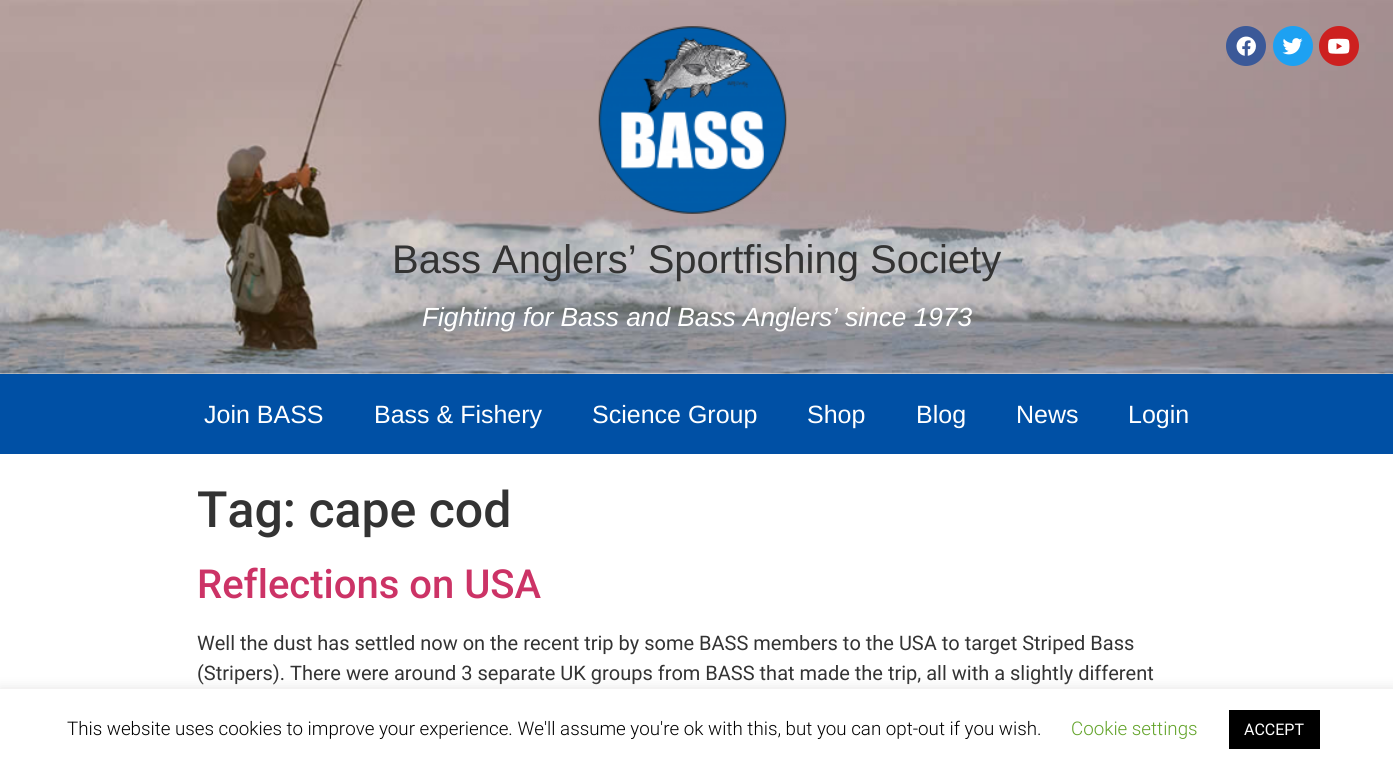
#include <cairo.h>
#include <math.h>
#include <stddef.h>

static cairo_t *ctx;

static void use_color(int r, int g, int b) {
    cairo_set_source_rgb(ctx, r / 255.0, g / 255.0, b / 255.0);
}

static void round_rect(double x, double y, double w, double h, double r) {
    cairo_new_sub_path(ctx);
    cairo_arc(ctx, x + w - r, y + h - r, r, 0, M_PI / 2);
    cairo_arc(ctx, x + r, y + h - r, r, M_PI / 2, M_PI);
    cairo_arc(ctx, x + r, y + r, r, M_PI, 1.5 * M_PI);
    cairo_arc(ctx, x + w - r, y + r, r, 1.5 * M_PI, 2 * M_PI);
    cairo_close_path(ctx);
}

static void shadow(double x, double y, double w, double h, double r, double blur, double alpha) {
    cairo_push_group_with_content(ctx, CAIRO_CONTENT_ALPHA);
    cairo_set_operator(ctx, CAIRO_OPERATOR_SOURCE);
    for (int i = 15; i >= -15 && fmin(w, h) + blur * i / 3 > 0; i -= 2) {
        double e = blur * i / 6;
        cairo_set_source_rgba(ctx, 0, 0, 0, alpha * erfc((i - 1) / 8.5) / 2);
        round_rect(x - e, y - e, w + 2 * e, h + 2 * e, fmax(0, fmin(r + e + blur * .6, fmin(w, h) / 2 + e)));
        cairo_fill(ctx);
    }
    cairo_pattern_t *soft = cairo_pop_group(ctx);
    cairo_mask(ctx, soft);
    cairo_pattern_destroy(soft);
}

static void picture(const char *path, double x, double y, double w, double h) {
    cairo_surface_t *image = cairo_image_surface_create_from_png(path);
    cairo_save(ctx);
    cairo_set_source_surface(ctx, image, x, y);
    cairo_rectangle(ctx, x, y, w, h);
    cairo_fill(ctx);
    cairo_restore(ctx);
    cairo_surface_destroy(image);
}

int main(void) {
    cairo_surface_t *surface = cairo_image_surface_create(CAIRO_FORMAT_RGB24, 1393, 770);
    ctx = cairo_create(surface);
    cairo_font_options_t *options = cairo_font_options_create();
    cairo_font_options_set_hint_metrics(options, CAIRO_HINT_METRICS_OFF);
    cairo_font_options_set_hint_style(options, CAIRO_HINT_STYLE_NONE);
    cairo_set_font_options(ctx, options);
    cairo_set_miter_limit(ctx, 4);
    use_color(255, 255, 255);
    cairo_paint(ctx);
    picture("img1.png", 0, 0, 1393, 374);
    picture("img2.png", 598, 26, 189, 188);
    use_color(59, 89, 152);
    cairo_arc(ctx, 1246, 46, 20, 0, 2 * M_PI);
    cairo_fill(ctx);
    picture("img3.png", 1236, 36, 20, 20);
    use_color(29, 161, 242);
    cairo_arc(ctx, 1293, 46, 20, 0, 2 * M_PI);
    cairo_fill(ctx);
    picture("img4.png", 1282, 38, 21, 17);
    use_color(205, 32, 31);
    cairo_arc(ctx, 1339, 46, 20, 0, 2 * M_PI);
    cairo_fill(ctx);
    picture("img5.png", 1328, 38, 22, 16);
    cairo_select_font_face(ctx, "Liberation Sans", CAIRO_FONT_SLANT_NORMAL, CAIRO_FONT_WEIGHT_NORMAL);
    cairo_set_font_size(ctx, 40);
    use_color(51, 51, 51);
    cairo_move_to(ctx, 392, 273);
    cairo_show_text(ctx, "Bass Anglers’ Sportfishing Society");
    cairo_select_font_face(ctx, "Liberation Sans", CAIRO_FONT_SLANT_ITALIC, CAIRO_FONT_WEIGHT_NORMAL);
    cairo_set_font_size(ctx, 26.25);
    use_color(255, 255, 255);
    cairo_move_to(ctx, 422, 326);
    cairo_show_text(ctx, "Fighting for Bass and Bass Anglers’ since 1973");
    use_color(0, 80, 165);
    cairo_rectangle(ctx, 0, 374, 1393, 80);
    cairo_fill(ctx);
    cairo_select_font_face(ctx, "Liberation Sans", CAIRO_FONT_SLANT_NORMAL, CAIRO_FONT_WEIGHT_NORMAL);
    cairo_set_font_size(ctx, 25);
    use_color(255, 255, 255);
    cairo_move_to(ctx, 204, 423);
    cairo_show_text(ctx, "Join BASS");
    cairo_move_to(ctx, 374, 423);
    cairo_show_text(ctx, "Bass & Fishery");
    cairo_move_to(ctx, 592, 423);
    cairo_show_text(ctx, "Science Group");
    cairo_move_to(ctx, 807, 423);
    cairo_show_text(ctx, "Shop");
    cairo_move_to(ctx, 916, 423);
    cairo_show_text(ctx, "Blog");
    cairo_move_to(ctx, 1016, 423);
    cairo_show_text(ctx, "News");
    cairo_move_to(ctx, 1128, 423);
    cairo_show_text(ctx, "Login");
    cairo_select_font_face(ctx, "Roboto Medium", CAIRO_FONT_SLANT_NORMAL, CAIRO_FONT_WEIGHT_NORMAL);
    cairo_set_font_size(ctx, 50);
    use_color(51, 51, 51);
    cairo_move_to(ctx, 197, 527);
    cairo_show_text(ctx, "Tag: cape cod");
    cairo_set_font_size(ctx, 40);
    use_color(204, 51, 102);
    cairo_move_to(ctx, 197, 598);
    cairo_show_text(ctx, "Reflections on USA");
    cairo_select_font_face(ctx, "Roboto", CAIRO_FONT_SLANT_NORMAL, CAIRO_FONT_WEIGHT_NORMAL);
    cairo_set_font_size(ctx, 20);
    use_color(51, 51, 51);
    cairo_move_to(ctx, 197, 650);
    cairo_show_text(ctx, "Well the dust has settled now on the recent trip by some BASS members to the USA to target Striped Bass");
    cairo_move_to(ctx, 197, 680);
    cairo_show_text(ctx, "(Stripers). There were around 3 separate UK groups from BASS that made the trip, all with a slightly different");
    use_color(172, 171, 171);
    shadow(0, 688, 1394, 81, 0, 6, 0.3);
    use_color(255, 255, 255);
    cairo_rectangle(ctx, 0, 689, 1393, 81);
    cairo_fill(ctx);
    cairo_select_font_face(ctx, "Roboto Light", CAIRO_FONT_SLANT_NORMAL, CAIRO_FONT_WEIGHT_NORMAL);
    cairo_set_font_size(ctx, 18.75);
    use_color(0, 0, 0);
    cairo_move_to(ctx, 67, 735);
    cairo_show_text(ctx, "This website uses cookies to improve your experience. We'll assume you're ok with this, but you can opt-out if you wish.");
    use_color(98, 163, 41);
    cairo_move_to(ctx, 1071, 735);
    cairo_show_text(ctx, "Cookie settings");
    use_color(0, 0, 0);
    cairo_rectangle(ctx, 1229, 710, 91, 39);
    cairo_fill(ctx);
    cairo_select_font_face(ctx, "Roboto", CAIRO_FONT_SLANT_NORMAL, CAIRO_FONT_WEIGHT_NORMAL);
    cairo_set_font_size(ctx, 16);
    use_color(255, 255, 255);
    cairo_move_to(ctx, 1244, 735);
    cairo_show_text(ctx, "ACCEPT");
    cairo_surface_write_to_png(surface, "result.png");
    cairo_font_options_destroy(options);
    cairo_destroy(ctx);
    cairo_surface_destroy(surface);
    return 0;
}
